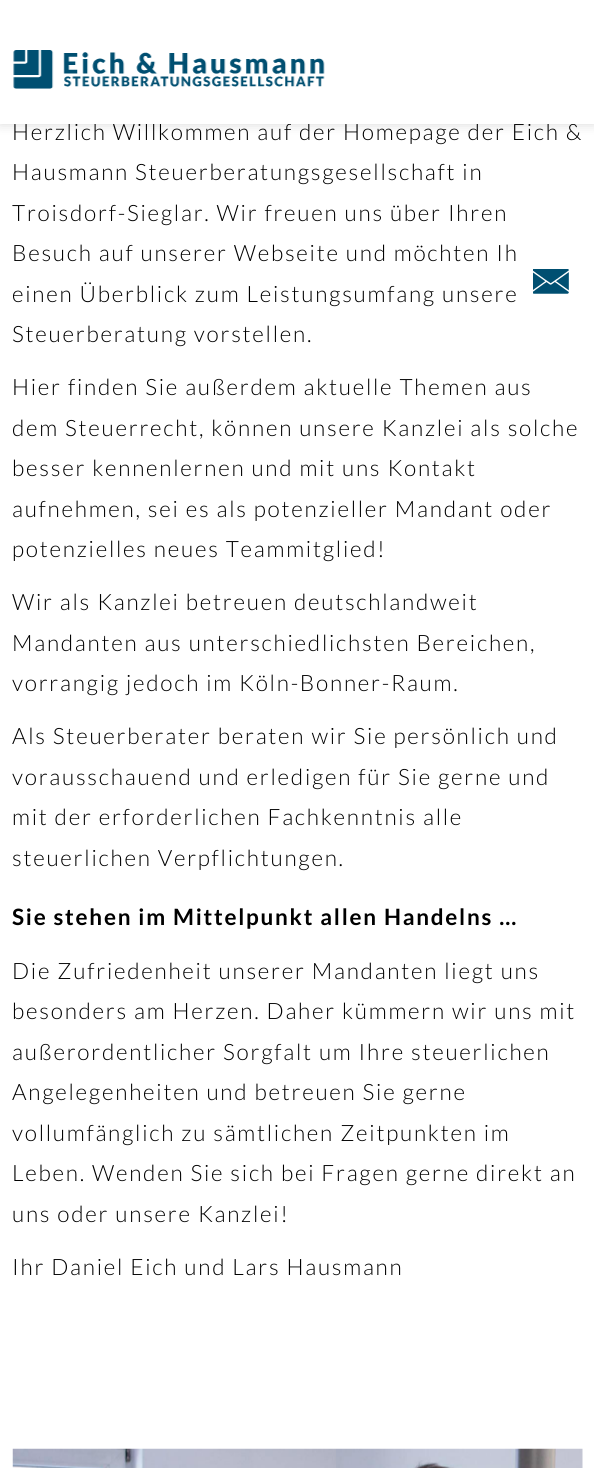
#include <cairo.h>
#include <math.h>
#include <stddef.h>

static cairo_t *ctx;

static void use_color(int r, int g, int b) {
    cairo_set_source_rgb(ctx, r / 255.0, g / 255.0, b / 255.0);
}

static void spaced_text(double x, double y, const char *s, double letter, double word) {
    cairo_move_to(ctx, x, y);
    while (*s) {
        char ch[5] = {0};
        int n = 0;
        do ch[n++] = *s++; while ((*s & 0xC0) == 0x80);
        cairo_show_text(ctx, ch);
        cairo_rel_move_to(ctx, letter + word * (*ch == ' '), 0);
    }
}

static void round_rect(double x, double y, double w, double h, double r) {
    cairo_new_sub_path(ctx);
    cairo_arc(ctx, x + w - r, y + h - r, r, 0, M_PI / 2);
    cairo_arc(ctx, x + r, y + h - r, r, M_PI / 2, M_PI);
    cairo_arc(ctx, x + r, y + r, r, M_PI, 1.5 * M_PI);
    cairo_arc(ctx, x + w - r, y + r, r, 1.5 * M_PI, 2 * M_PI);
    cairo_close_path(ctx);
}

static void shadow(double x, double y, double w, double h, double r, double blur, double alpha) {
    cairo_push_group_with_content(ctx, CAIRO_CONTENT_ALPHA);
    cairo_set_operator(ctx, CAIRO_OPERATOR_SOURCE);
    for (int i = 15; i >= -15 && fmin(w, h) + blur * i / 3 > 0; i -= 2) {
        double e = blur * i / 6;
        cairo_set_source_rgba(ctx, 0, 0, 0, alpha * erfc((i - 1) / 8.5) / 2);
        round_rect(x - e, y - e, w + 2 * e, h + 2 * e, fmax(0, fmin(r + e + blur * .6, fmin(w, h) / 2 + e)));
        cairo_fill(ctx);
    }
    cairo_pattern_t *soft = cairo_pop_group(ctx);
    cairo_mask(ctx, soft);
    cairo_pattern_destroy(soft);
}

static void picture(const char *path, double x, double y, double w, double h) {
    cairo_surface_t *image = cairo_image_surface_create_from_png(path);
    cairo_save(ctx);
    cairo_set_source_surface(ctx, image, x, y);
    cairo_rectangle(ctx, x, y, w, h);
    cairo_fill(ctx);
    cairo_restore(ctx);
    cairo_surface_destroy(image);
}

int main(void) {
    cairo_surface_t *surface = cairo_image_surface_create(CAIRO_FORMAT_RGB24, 594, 1468);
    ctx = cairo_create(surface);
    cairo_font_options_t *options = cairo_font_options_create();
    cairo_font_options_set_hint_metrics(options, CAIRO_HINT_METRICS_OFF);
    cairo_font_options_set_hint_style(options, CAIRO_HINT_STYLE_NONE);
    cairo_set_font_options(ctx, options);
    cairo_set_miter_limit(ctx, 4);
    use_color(255, 255, 255);
    cairo_paint(ctx);
    use_color(0, 0, 0);
    shadow(0, 0, 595, 124, 0, 6, 0.15);
    cairo_select_font_face(ctx, "Lato Light", CAIRO_FONT_SLANT_NORMAL, CAIRO_FONT_WEIGHT_NORMAL);
    cairo_set_font_size(ctx, 22.5);
    use_color(0, 0, 0);
    spaced_text(12, 140, "Herzlich Willkommen auf der Homepage der Eich &", 1.75, 0);
    use_color(255, 255, 255);
    cairo_rectangle(ctx, 0, 0, 594, 124);
    cairo_fill(ctx);
    picture("img1.png", 13, 50, 312, 39);
    use_color(0, 0, 0);
    spaced_text(12, 180, "Hausmann Steuerberatungsgesellschaft in", 1.75, 0);
    spaced_text(12, 221, "Troisdorf-Sieglar. Wir freuen uns über Ihren", 1.75, 0);
    spaced_text(12, 261, "Besuch auf unserer Webseite und möchten Ih", 1.75, 0);
    spaced_text(12, 302, "einen Überblick zum Leistungsumfang unsere", 1.75, 0);
    spaced_text(12, 342, "Steuerberatung vorstellen.", 1.75, 0);
    spaced_text(12, 395, "Hier finden Sie außerdem aktuelle Themen aus", 1.75, 0);
    spaced_text(12, 436, "dem Steuerrecht, können unsere Kanzlei als solche", 1.75, 0);
    spaced_text(12, 476, "besser kennenlernen und mit uns Kontakt", 1.75, 0);
    spaced_text(12, 517, "aufnehmen, sei es als potenzieller Mandant oder", 1.75, 0);
    spaced_text(12, 557, "potenzielles neues Teammitglied!", 1.75, 0);
    spaced_text(12, 610, "Wir als Kanzlei betreuen deutschlandweit", 1.75, 0);
    spaced_text(12, 651, "Mandanten aus unterschiedlichsten Bereichen,", 1.75, 0);
    spaced_text(12, 691, "vorrangig jedoch im Köln-Bonner-Raum.", 1.75, 0);
    spaced_text(12, 744, "Als Steuerberater beraten wir Sie persönlich und", 1.75, 0);
    spaced_text(12, 785, "vorausschauend und erledigen für Sie gerne und", 1.75, 0);
    spaced_text(12, 825, "mit der erforderlichen Fachkenntnis alle", 1.75, 0);
    spaced_text(12, 866, "steuerlichen Verpflichtungen.", 1.75, 0);
    cairo_select_font_face(ctx, "Lato", CAIRO_FONT_SLANT_NORMAL, CAIRO_FONT_WEIGHT_BOLD);
    spaced_text(12, 925, "Sie stehen im Mittelpunkt allen Handelns …", 1.75, 0);
    cairo_select_font_face(ctx, "Lato Light", CAIRO_FONT_SLANT_NORMAL, CAIRO_FONT_WEIGHT_NORMAL);
    spaced_text(12, 979, "Die Zufriedenheit unserer Mandanten liegt uns", 1.75, 0);
    spaced_text(12, 1019, "besonders am Herzen. Daher kümmern wir uns mit", 1.75, 0);
    spaced_text(12, 1060, "außerordentlicher Sorgfalt um Ihre steuerlichen", 1.75, 0);
    spaced_text(12, 1100, "Angelegenheiten und betreuen Sie gerne", 1.75, 0);
    spaced_text(12, 1141, "vollumfänglich zu sämtlichen Zeitpunkten im", 1.75, 0);
    spaced_text(12, 1181, "Leben. Wenden Sie sich bei Fragen gerne direkt an", 1.75, 0);
    spaced_text(12, 1222, "uns oder unsere Kanzlei!", 1.75, 0);
    spaced_text(12, 1275, "Ihr Daniel Eich und Lars Hausmann", 1.75, 0);
    picture("img2.png", 12, 1448, 571, 20);
    picture("img3.png", 533, 269, 36, 25);
    cairo_surface_write_to_png(surface, "result.png");
    cairo_font_options_destroy(options);
    cairo_destroy(ctx);
    cairo_surface_destroy(surface);
    return 0;
}
